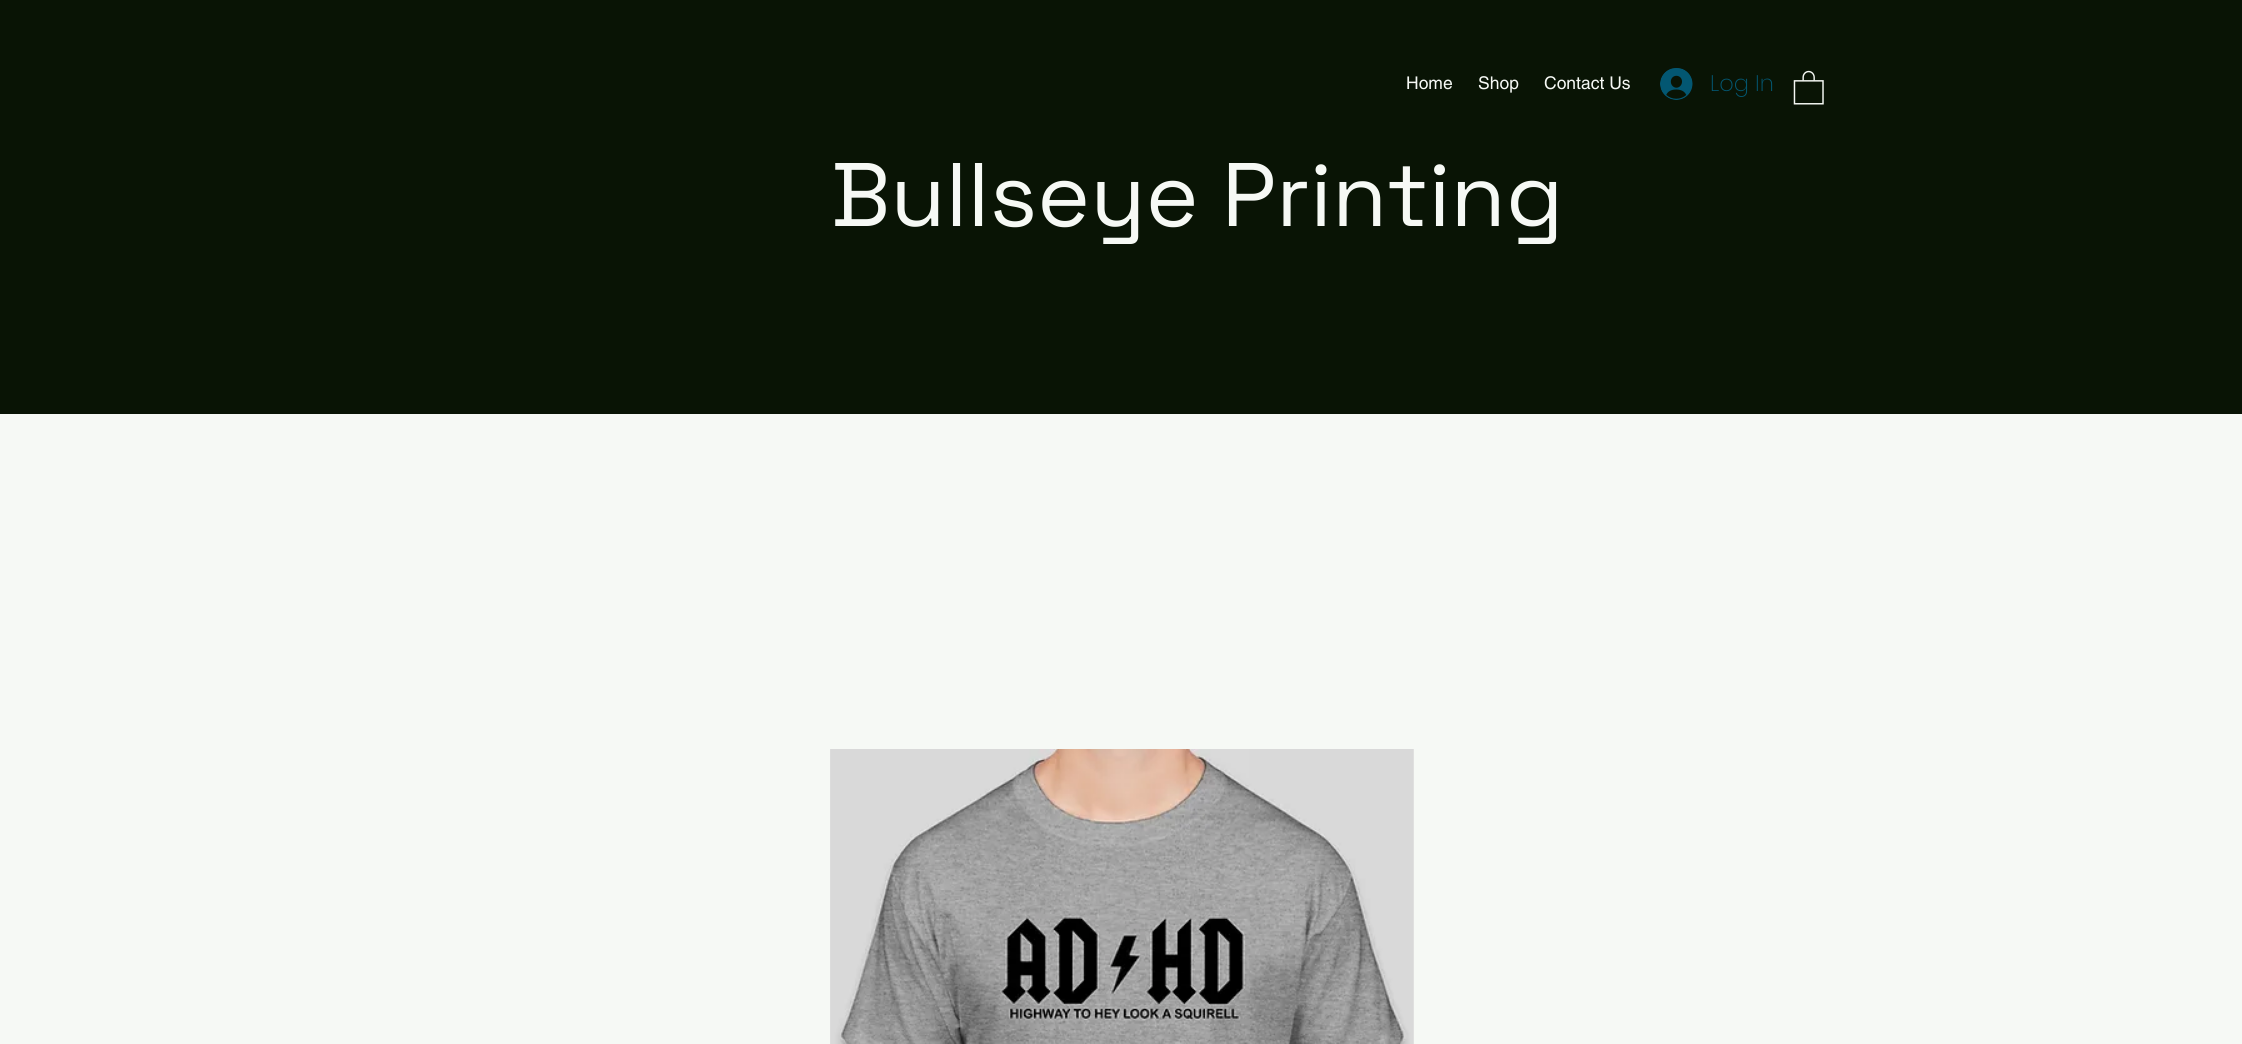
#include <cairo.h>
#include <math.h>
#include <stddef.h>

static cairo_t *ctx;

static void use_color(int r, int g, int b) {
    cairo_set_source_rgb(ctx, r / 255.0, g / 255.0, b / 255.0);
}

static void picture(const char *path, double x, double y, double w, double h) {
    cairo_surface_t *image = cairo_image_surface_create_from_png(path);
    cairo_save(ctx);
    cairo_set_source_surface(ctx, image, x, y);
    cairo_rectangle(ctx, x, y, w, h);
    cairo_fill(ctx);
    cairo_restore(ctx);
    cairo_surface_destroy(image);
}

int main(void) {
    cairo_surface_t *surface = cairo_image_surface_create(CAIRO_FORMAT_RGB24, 2242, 1044);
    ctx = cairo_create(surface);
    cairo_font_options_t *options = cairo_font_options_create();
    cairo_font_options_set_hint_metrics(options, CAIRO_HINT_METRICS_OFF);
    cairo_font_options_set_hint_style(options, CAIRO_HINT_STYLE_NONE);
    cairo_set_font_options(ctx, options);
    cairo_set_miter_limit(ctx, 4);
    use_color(246, 249, 245);
    cairo_paint(ctx);
    use_color(9, 20, 5);
    cairo_rectangle(ctx, 0, 0, 2242, 414);
    cairo_fill(ctx);
    cairo_select_font_face(ctx, "helvetica", CAIRO_FONT_SLANT_NORMAL, CAIRO_FONT_WEIGHT_NORMAL);
    cairo_set_font_size(ctx, 17.5);
    use_color(246, 249, 245);
    cairo_move_to(ctx, 1406, 89);
    cairo_show_text(ctx, "Home");
    cairo_move_to(ctx, 1478, 89);
    cairo_show_text(ctx, "Shop");
    cairo_move_to(ctx, 1544, 89);
    cairo_show_text(ctx, "Contact Us");
    picture("img1.png", 1660, 68, 33, 32);
    cairo_select_font_face(ctx, "Poppins ExtraLight", CAIRO_FONT_SLANT_NORMAL, CAIRO_FONT_WEIGHT_NORMAL);
    cairo_set_font_size(ctx, 22.5);
    use_color(3, 87, 114);
    cairo_move_to(ctx, 1710, 91);
    cairo_show_text(ctx, "Log In");
    picture("img2.png", 1793, 70, 31, 35);
    cairo_select_font_face(ctx, "Space Grotesk", CAIRO_FONT_SLANT_NORMAL, CAIRO_FONT_WEIGHT_NORMAL);
    cairo_set_font_size(ctx, 90);
    use_color(246, 249, 245);
    cairo_move_to(ctx, 831, 226);
    cairo_show_text(ctx, "Bullseye Printing");
    picture("img3.png", 830, 749, 584, 295);
    cairo_surface_write_to_png(surface, "result.png");
    cairo_font_options_destroy(options);
    cairo_destroy(ctx);
    cairo_surface_destroy(surface);
    return 0;
}
